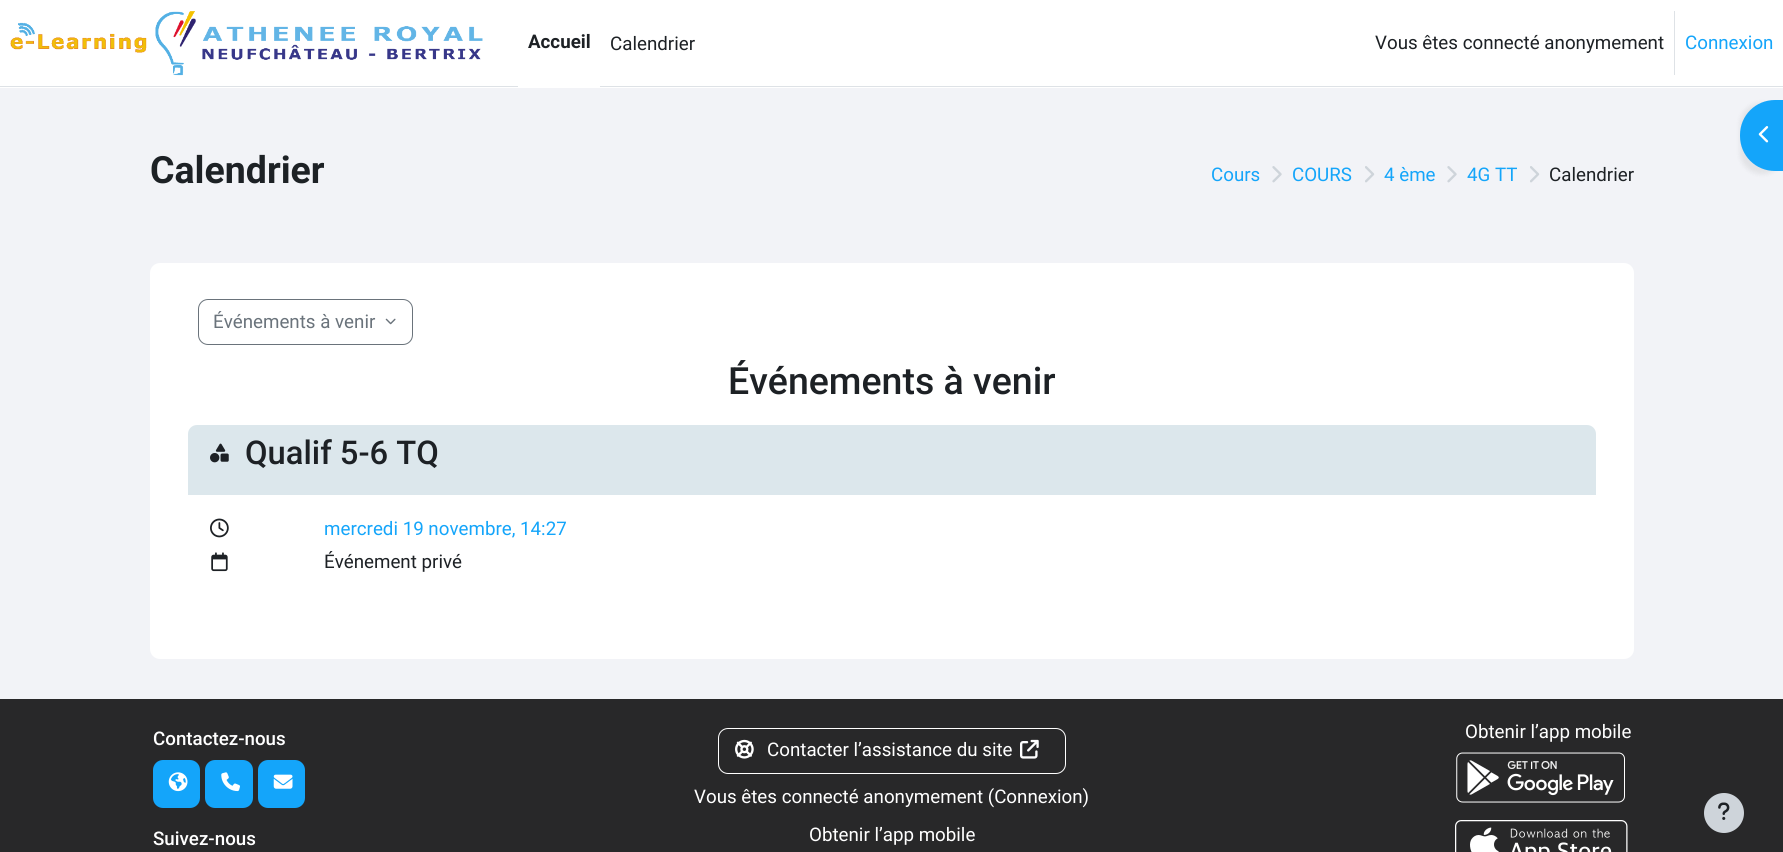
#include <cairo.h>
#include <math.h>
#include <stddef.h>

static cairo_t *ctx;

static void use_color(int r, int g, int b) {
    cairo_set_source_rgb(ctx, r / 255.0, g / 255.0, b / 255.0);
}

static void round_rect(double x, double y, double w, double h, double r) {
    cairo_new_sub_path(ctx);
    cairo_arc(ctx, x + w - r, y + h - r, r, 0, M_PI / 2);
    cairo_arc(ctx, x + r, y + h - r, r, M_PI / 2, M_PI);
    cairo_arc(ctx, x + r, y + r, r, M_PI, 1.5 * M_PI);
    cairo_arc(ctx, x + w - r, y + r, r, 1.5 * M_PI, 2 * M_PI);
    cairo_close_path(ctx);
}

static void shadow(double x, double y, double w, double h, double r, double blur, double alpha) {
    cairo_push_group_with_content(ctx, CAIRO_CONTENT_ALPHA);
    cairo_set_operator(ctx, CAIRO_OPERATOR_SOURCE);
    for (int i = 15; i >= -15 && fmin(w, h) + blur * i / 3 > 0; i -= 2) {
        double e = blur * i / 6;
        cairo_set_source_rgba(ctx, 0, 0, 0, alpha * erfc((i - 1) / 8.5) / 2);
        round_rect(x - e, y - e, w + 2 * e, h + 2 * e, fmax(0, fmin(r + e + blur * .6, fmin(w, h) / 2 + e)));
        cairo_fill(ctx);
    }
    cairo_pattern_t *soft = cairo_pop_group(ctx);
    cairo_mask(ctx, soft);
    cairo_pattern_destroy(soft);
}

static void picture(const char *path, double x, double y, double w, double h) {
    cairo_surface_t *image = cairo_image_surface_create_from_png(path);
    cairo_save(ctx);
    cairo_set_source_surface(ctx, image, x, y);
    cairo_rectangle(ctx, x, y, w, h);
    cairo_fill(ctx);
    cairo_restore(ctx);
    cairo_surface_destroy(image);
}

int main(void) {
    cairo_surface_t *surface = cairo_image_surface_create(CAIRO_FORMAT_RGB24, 1783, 852);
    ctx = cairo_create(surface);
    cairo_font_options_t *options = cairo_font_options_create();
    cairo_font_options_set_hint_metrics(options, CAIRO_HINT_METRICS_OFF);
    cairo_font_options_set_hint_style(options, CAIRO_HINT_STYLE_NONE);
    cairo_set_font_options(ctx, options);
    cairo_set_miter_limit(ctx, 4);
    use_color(242, 243, 247);
    cairo_paint(ctx);
    use_color(255, 255, 255);
    cairo_rectangle(ctx, 0, 0, 1783, 88);
    cairo_fill(ctx);
    use_color(222, 226, 230);
    cairo_rectangle(ctx, 0, 86, 1783, 1);
    cairo_fill(ctx);
    picture("img1.png", 10, 11, 473, 65);
    use_color(255, 255, 255);
    cairo_rectangle(ctx, 518, 86, 82, 1);
    cairo_fill(ctx);
    cairo_select_font_face(ctx, "Roboto", CAIRO_FONT_SLANT_NORMAL, CAIRO_FONT_WEIGHT_BOLD);
    cairo_set_font_size(ctx, 18.75);
    use_color(29, 33, 37);
    cairo_move_to(ctx, 528, 48);
    cairo_show_text(ctx, "Accueil");
    cairo_select_font_face(ctx, "Roboto", CAIRO_FONT_SLANT_NORMAL, CAIRO_FONT_WEIGHT_NORMAL);
    cairo_move_to(ctx, 610, 50);
    cairo_show_text(ctx, "Calendrier");
    cairo_move_to(ctx, 1375, 49);
    cairo_show_text(ctx, "Vous êtes connecté anonymement");
    use_color(222, 226, 230);
    cairo_rectangle(ctx, 1674, 11, 1, 64);
    cairo_fill(ctx);
    use_color(20, 165, 250);
    cairo_move_to(ctx, 1685, 49);
    cairo_show_text(ctx, "Connexion");
    cairo_select_font_face(ctx, "Roboto", CAIRO_FONT_SLANT_NORMAL, CAIRO_FONT_WEIGHT_BOLD);
    cairo_set_font_size(ctx, 37.5);
    use_color(29, 33, 37);
    cairo_move_to(ctx, 150, 183);
    cairo_show_text(ctx, "Calendrier");
    cairo_select_font_face(ctx, "Roboto", CAIRO_FONT_SLANT_NORMAL, CAIRO_FONT_WEIGHT_NORMAL);
    cairo_set_font_size(ctx, 18.75);
    use_color(20, 165, 250);
    cairo_move_to(ctx, 1211, 181);
    cairo_show_text(ctx, "Cours");
    picture("img2.png", 1272, 166, 10, 17);
    cairo_move_to(ctx, 1292, 181);
    cairo_show_text(ctx, "COURS");
    picture("img3.png", 1365, 166, 10, 17);
    cairo_move_to(ctx, 1384, 181);
    cairo_show_text(ctx, "4 ème");
    picture("img2.png", 1447, 166, 10, 17);
    cairo_move_to(ctx, 1467, 181);
    cairo_show_text(ctx, "4G TT");
    picture("img3.png", 1530, 166, 10, 17);
    use_color(29, 33, 37);
    cairo_move_to(ctx, 1549, 181);
    cairo_show_text(ctx, "Calendrier");
    use_color(255, 255, 255);
    round_rect(150, 263, 1484, 396, 10);
    cairo_fill(ctx);
    use_color(0, 0, 0);
    shadow(1740, 103, 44, 71, 35, 2.5, 0.07);
    use_color(20, 165, 250);
    cairo_new_path(ctx);
    cairo_move_to(ctx, 1775, 100);
    cairo_line_to(ctx, 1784, 100);
    cairo_line_to(ctx, 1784, 171);
    cairo_line_to(ctx, 1775, 171);
    cairo_curve_to(ctx, 1755.5, 171, 1740, 155.5, 1740, 136);
    cairo_line_to(ctx, 1740, 135);
    cairo_curve_to(ctx, 1740, 115.5, 1755.5, 100, 1775, 100);
    cairo_close_path(ctx);
    cairo_fill(ctx);
    picture("img4.png", 1758, 126, 11, 17);
    round_rect(198.5, 299.5, 214, 45, 9.5);
    use_color(106, 115, 123);
    cairo_set_line_width(ctx, 1);
    cairo_stroke(ctx);
    cairo_move_to(ctx, 213, 328);
    cairo_show_text(ctx, "Événements à venir");
    picture("img5.png", 385, 318, 11, 7);
    cairo_select_font_face(ctx, "Roboto Medium", CAIRO_FONT_SLANT_NORMAL, CAIRO_FONT_WEIGHT_NORMAL);
    cairo_set_font_size(ctx, 37.5);
    use_color(29, 33, 37);
    cairo_move_to(ctx, 728, 394);
    cairo_show_text(ctx, "Événements à venir");
    use_color(220, 231, 236);
    cairo_new_path(ctx);
    cairo_move_to(ctx, 197, 425);
    cairo_line_to(ctx, 1587, 425);
    cairo_curve_to(ctx, 1592, 425, 1596, 429, 1596, 434);
    cairo_line_to(ctx, 1596, 495);
    cairo_line_to(ctx, 188, 495);
    cairo_line_to(ctx, 188, 434);
    cairo_curve_to(ctx, 188, 429, 192, 425, 197, 425);
    cairo_close_path(ctx);
    cairo_fill(ctx);
    picture("img6.png", 210, 443, 19, 20);
    cairo_set_font_size(ctx, 32.75);
    use_color(29, 33, 37);
    cairo_move_to(ctx, 245, 464);
    cairo_show_text(ctx, "Qualif 5-6 TQ");
    picture("img7.png", 210, 518, 19, 20);
    cairo_select_font_face(ctx, "Roboto", CAIRO_FONT_SLANT_NORMAL, CAIRO_FONT_WEIGHT_NORMAL);
    cairo_set_font_size(ctx, 18.75);
    use_color(20, 165, 250);
    cairo_move_to(ctx, 324, 535);
    cairo_show_text(ctx, "mercredi 19 novembre, 14:27");
    picture("img8.png", 211, 552, 17, 20);
    use_color(29, 33, 37);
    cairo_move_to(ctx, 324, 568);
    cairo_show_text(ctx, "Événement privé");
    use_color(40, 40, 41);
    cairo_rectangle(ctx, 0, 699, 1783, 153);
    cairo_fill(ctx);
    cairo_select_font_face(ctx, "Roboto Medium", CAIRO_FONT_SLANT_NORMAL, CAIRO_FONT_WEIGHT_NORMAL);
    use_color(255, 255, 255);
    cairo_move_to(ctx, 153, 745);
    cairo_show_text(ctx, "Contactez-nous");
    use_color(20, 165, 250);
    round_rect(153, 760, 47, 48, 10);
    cairo_fill(ctx);
    picture("img9.png", 168, 772, 20, 20);
    round_rect(205, 760, 48, 48, 10);
    cairo_fill(ctx);
    picture("img10.png", 221, 772, 19, 20);
    round_rect(258, 760, 47, 48, 10);
    cairo_fill(ctx);
    picture("img11.png", 273, 774, 20, 15);
    use_color(255, 255, 255);
    cairo_move_to(ctx, 153, 845);
    cairo_show_text(ctx, "Suivez-nous");
    round_rect(718.5, 728.5, 347, 45, 9.5);
    cairo_stroke(ctx);
    picture("img12.png", 735, 739, 19, 20);
    cairo_select_font_face(ctx, "Roboto", CAIRO_FONT_SLANT_NORMAL, CAIRO_FONT_WEIGHT_NORMAL);
    cairo_move_to(ctx, 767, 756);
    cairo_show_text(ctx, "Contacter l’assistance du site");
    picture("img13.png", 1020, 739, 19, 20);
    cairo_move_to(ctx, 694, 803);
    cairo_show_text(ctx, "Vous êtes connecté anonymement (Connexion)");
    cairo_move_to(ctx, 809, 841);
    cairo_show_text(ctx, "Obtenir l’app mobile");
    cairo_move_to(ctx, 1465, 738);
    cairo_show_text(ctx, "Obtenir l’app mobile");
    picture("img14.png", 1456, 752, 169, 51);
    picture("img15.png", 1455, 820, 173, 32);
    use_color(206, 212, 218);
    cairo_arc(ctx, 1724, 813, 20, 0, 2 * M_PI);
    cairo_fill(ctx);
    picture("img16.png", 1718, 802, 12, 18);
    cairo_surface_write_to_png(surface, "result.png");
    cairo_font_options_destroy(options);
    cairo_destroy(ctx);
    cairo_surface_destroy(surface);
    return 0;
}
